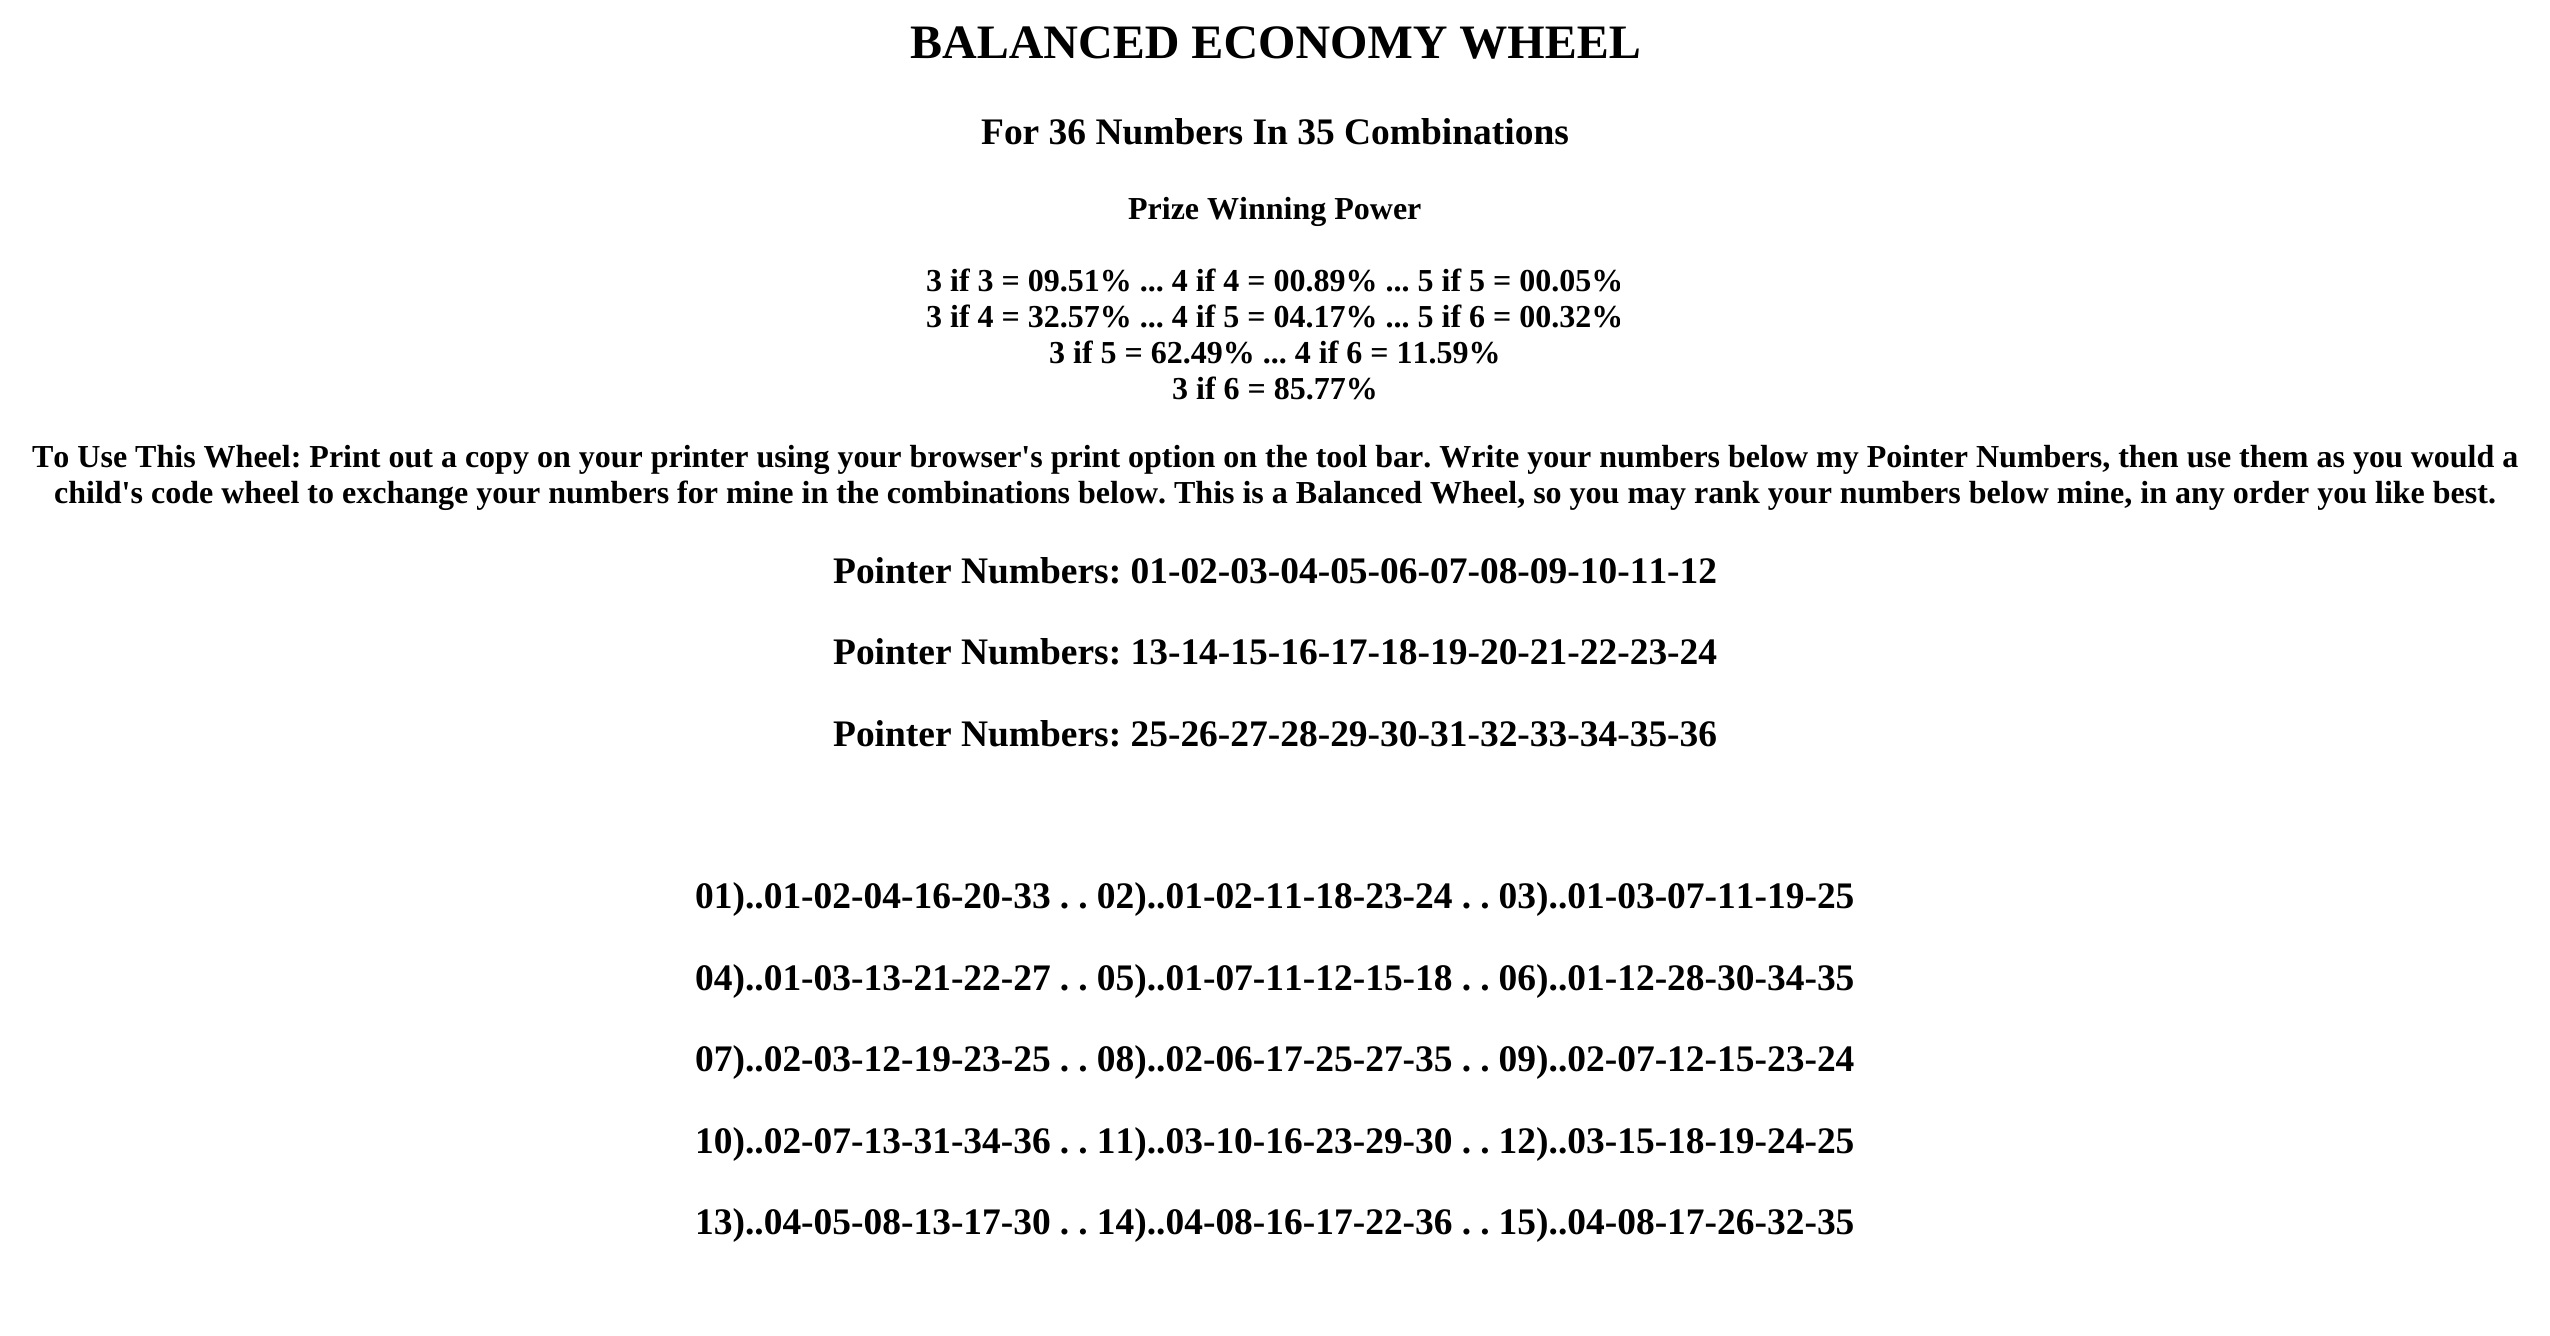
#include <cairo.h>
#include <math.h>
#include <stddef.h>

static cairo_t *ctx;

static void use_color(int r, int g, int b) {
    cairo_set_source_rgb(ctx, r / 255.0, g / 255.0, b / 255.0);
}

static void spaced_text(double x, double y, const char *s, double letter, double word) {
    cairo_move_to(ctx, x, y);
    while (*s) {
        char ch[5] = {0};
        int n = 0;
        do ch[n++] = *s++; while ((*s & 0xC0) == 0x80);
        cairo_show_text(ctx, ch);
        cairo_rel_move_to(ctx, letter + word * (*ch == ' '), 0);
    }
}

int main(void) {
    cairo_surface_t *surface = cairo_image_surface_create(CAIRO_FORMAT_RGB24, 2550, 1336);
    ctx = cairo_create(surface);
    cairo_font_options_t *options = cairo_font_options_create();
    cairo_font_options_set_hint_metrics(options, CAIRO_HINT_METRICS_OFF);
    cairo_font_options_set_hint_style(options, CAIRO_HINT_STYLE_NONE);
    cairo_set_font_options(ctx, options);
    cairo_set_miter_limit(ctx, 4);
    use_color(255, 255, 255);
    cairo_paint(ctx);
    cairo_select_font_face(ctx, "Liberation Serif", CAIRO_FONT_SLANT_NORMAL, CAIRO_FONT_WEIGHT_BOLD);
    cairo_set_font_size(ctx, 48);
    use_color(0, 0, 0);
    cairo_move_to(ctx, 910, 58);
    cairo_show_text(ctx, "BALANCED ECONOMY WHEEL");
    cairo_set_font_size(ctx, 37.45);
    cairo_move_to(ctx, 981, 144);
    cairo_show_text(ctx, "For 36 Numbers In 35 Combinations");
    cairo_set_font_size(ctx, 32);
    cairo_move_to(ctx, 1128, 219);
    cairo_show_text(ctx, "Prize Winning Power");
    cairo_move_to(ctx, 926, 291);
    cairo_show_text(ctx, "3 if 3 = 09.51% ... 4 if 4 = 00.89% ... 5 if 5 = 00.05%");
    cairo_move_to(ctx, 926, 327);
    cairo_show_text(ctx, "3 if 4 = 32.57% ... 4 if 5 = 04.17% ... 5 if 6 = 00.32%");
    cairo_move_to(ctx, 1049, 363);
    cairo_show_text(ctx, "3 if 5 = 62.49% ... 4 if 6 = 11.59%");
    cairo_move_to(ctx, 1172, 399);
    cairo_show_text(ctx, "3 if 6 = 85.77%");
    cairo_move_to(ctx, 32, 467);
    cairo_show_text(ctx, "To Use This Wheel: Print out a copy on your printer using your browser's print option on the tool bar. Write your numbers below my Pointer Numbers, then use them as you would a");
    cairo_move_to(ctx, 54, 503);
    cairo_show_text(ctx, "child's code wheel to exchange your numbers for mine in the combinations below. This is a Balanced Wheel, so you may rank your numbers below mine, in any order you like best.");
    cairo_set_font_size(ctx, 37.45);
    cairo_move_to(ctx, 833, 583);
    cairo_show_text(ctx, "Pointer Numbers: 01-02-03-04-05-06-07-08-09-10-11-12");
    cairo_move_to(ctx, 833, 664);
    cairo_show_text(ctx, "Pointer Numbers: 13-14-15-16-17-18-19-20-21-22-23-24");
    cairo_move_to(ctx, 833, 746);
    cairo_show_text(ctx, "Pointer Numbers: 25-26-27-28-29-30-31-32-33-34-35-36");
    spaced_text(695, 908, "01)..01-02-04-16-20-33 . . 02)..01-02-11-18-23-24 . . 03)..01-03-07-11-19-25", 0, -0.25);
    spaced_text(695, 990, "04)..01-03-13-21-22-27 . . 05)..01-07-11-12-15-18 . . 06)..01-12-28-30-34-35", 0, -0.25);
    spaced_text(695, 1071, "07)..02-03-12-19-23-25 . . 08)..02-06-17-25-27-35 . . 09)..02-07-12-15-23-24", 0, -0.25);
    spaced_text(695, 1153, "10)..02-07-13-31-34-36 . . 11)..03-10-16-23-29-30 . . 12)..03-15-18-19-24-25", 0, -0.25);
    spaced_text(695, 1234, "13)..04-05-08-13-17-30 . . 14)..04-08-16-17-22-36 . . 15)..04-08-17-26-32-35", 0, -0.25);
    cairo_surface_write_to_png(surface, "result.png");
    cairo_font_options_destroy(options);
    cairo_destroy(ctx);
    cairo_surface_destroy(surface);
    return 0;
}
